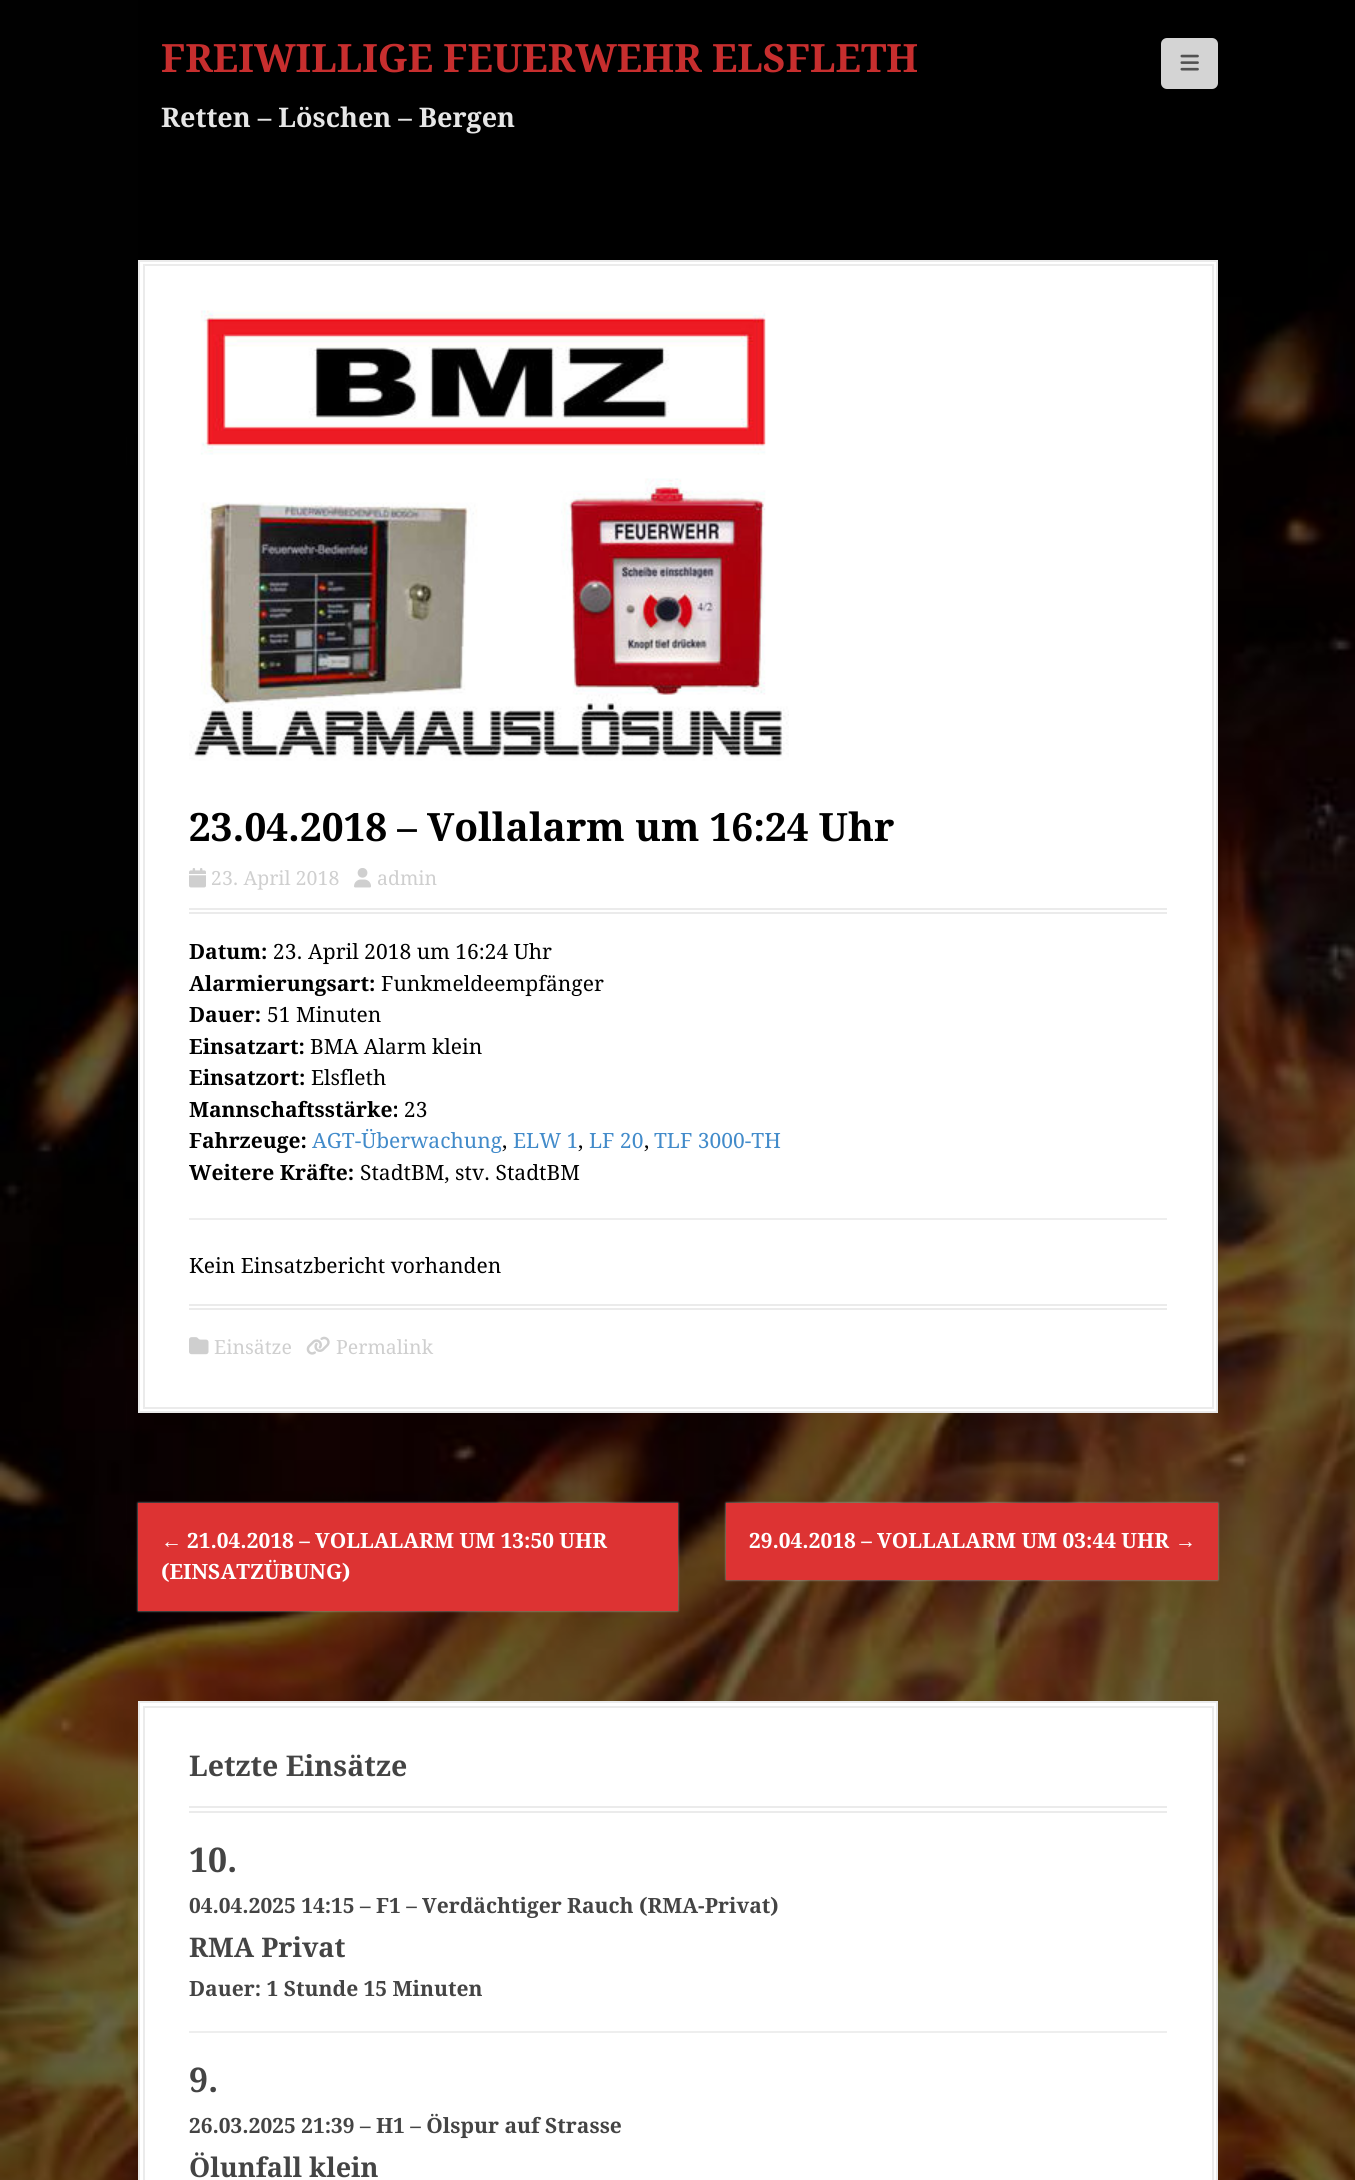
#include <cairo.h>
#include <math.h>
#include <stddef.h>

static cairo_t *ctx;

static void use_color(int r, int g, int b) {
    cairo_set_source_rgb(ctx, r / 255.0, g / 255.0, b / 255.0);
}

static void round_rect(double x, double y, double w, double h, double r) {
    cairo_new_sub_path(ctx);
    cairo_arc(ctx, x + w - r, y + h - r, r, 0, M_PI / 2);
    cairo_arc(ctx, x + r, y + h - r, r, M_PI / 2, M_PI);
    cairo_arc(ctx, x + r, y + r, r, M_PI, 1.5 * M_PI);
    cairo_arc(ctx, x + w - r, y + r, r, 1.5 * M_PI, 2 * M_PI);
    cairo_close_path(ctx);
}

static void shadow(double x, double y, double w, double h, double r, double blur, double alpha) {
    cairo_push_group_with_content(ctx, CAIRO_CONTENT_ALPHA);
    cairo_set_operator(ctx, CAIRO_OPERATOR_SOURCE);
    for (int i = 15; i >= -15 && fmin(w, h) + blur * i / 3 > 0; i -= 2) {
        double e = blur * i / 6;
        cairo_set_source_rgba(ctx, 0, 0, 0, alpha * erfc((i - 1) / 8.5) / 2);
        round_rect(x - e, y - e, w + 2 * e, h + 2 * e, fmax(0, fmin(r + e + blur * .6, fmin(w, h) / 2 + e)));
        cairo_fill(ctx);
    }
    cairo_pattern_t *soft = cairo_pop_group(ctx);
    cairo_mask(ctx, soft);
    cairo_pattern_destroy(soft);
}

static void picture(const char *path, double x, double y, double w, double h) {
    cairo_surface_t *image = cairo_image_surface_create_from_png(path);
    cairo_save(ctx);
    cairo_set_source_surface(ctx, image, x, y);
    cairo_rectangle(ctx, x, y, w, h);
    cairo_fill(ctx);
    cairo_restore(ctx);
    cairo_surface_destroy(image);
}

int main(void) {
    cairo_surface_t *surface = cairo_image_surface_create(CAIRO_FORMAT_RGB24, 1355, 2180);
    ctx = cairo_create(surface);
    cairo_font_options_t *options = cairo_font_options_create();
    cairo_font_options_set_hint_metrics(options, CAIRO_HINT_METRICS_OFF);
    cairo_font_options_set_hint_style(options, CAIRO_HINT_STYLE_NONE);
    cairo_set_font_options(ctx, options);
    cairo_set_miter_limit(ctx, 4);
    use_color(255, 255, 255);
    cairo_paint(ctx);
    picture("img1.png", 0, 0, 1355, 2180);
    cairo_select_font_face(ctx, "Droid Serif", CAIRO_FONT_SLANT_NORMAL, CAIRO_FONT_WEIGHT_BOLD);
    cairo_set_font_size(ctx, 39);
    use_color(199, 46, 46);
    cairo_move_to(ctx, 161, 72);
    cairo_show_text(ctx, "FREIWILLIGE FEUERWEHR ELSFLETH");
    cairo_set_font_size(ctx, 27);
    use_color(230, 230, 230);
    cairo_move_to(ctx, 161, 127);
    cairo_show_text(ctx, "Retten – Löschen – Bergen");
    use_color(212, 212, 212);
    round_rect(1161, 38, 57, 51, 6);
    cairo_fill(ctx);
    picture("img2.png", 1180, 54, 19, 17);
    use_color(255, 255, 255);
    cairo_rectangle(ctx, 139, 261, 1078, 1151);
    cairo_fill_preserve(ctx);
    use_color(235, 235, 235);
    cairo_stroke(ctx);
    cairo_rectangle(ctx, 144, 265, 1069, 1143);
    cairo_stroke(ctx);
    picture("img3.png", 189, 310, 600, 451);
    cairo_rectangle(ctx, 189, 908, 978, 2);
    cairo_fill(ctx);
    cairo_rectangle(ctx, 189, 912, 978, 2);
    cairo_fill(ctx);
    cairo_set_font_size(ctx, 39);
    use_color(0, 0, 0);
    cairo_move_to(ctx, 189, 841);
    cairo_show_text(ctx, "23.04.2018 – Vollalarm um 16:24 Uhr");
    picture("img4.png", 189, 868, 17, 20);
    cairo_select_font_face(ctx, "Droid Serif", CAIRO_FONT_SLANT_NORMAL, CAIRO_FONT_WEIGHT_NORMAL);
    cairo_set_font_size(ctx, 19.5);
    use_color(207, 207, 207);
    cairo_move_to(ctx, 211, 885);
    cairo_show_text(ctx, "23. April 2018");
    picture("img5.png", 354, 868, 17, 20);
    cairo_move_to(ctx, 377, 885);
    cairo_show_text(ctx, "admin");
    cairo_select_font_face(ctx, "Droid Serif", CAIRO_FONT_SLANT_NORMAL, CAIRO_FONT_WEIGHT_BOLD);
    cairo_set_font_size(ctx, 21);
    use_color(0, 0, 0);
    cairo_move_to(ctx, 189, 959);
    cairo_show_text(ctx, "Datum:");
    cairo_select_font_face(ctx, "Droid Serif", CAIRO_FONT_SLANT_NORMAL, CAIRO_FONT_WEIGHT_NORMAL);
    cairo_move_to(ctx, 273, 959);
    cairo_show_text(ctx, "23. April 2018 um 16:24 Uhr");
    cairo_select_font_face(ctx, "Droid Serif", CAIRO_FONT_SLANT_NORMAL, CAIRO_FONT_WEIGHT_BOLD);
    cairo_move_to(ctx, 189, 991);
    cairo_show_text(ctx, "Alarmierungsart:");
    cairo_select_font_face(ctx, "Droid Serif", CAIRO_FONT_SLANT_NORMAL, CAIRO_FONT_WEIGHT_NORMAL);
    cairo_move_to(ctx, 381, 991);
    cairo_show_text(ctx, "Funkmeldeempfänger");
    cairo_select_font_face(ctx, "Droid Serif", CAIRO_FONT_SLANT_NORMAL, CAIRO_FONT_WEIGHT_BOLD);
    cairo_move_to(ctx, 189, 1022);
    cairo_show_text(ctx, "Dauer:");
    cairo_select_font_face(ctx, "Droid Serif", CAIRO_FONT_SLANT_NORMAL, CAIRO_FONT_WEIGHT_NORMAL);
    cairo_move_to(ctx, 267, 1022);
    cairo_show_text(ctx, "51 Minuten");
    cairo_select_font_face(ctx, "Droid Serif", CAIRO_FONT_SLANT_NORMAL, CAIRO_FONT_WEIGHT_BOLD);
    cairo_move_to(ctx, 189, 1054);
    cairo_show_text(ctx, "Einsatzart:");
    cairo_select_font_face(ctx, "Droid Serif", CAIRO_FONT_SLANT_NORMAL, CAIRO_FONT_WEIGHT_NORMAL);
    cairo_move_to(ctx, 310, 1054);
    cairo_show_text(ctx, "BMA Alarm klein");
    cairo_select_font_face(ctx, "Droid Serif", CAIRO_FONT_SLANT_NORMAL, CAIRO_FONT_WEIGHT_BOLD);
    cairo_move_to(ctx, 189, 1085);
    cairo_show_text(ctx, "Einsatzort:");
    cairo_select_font_face(ctx, "Droid Serif", CAIRO_FONT_SLANT_NORMAL, CAIRO_FONT_WEIGHT_NORMAL);
    cairo_move_to(ctx, 311, 1085);
    cairo_show_text(ctx, "Elsfleth");
    cairo_select_font_face(ctx, "Droid Serif", CAIRO_FONT_SLANT_NORMAL, CAIRO_FONT_WEIGHT_BOLD);
    cairo_move_to(ctx, 189, 1117);
    cairo_show_text(ctx, "Mannschaftsstärke:");
    cairo_select_font_face(ctx, "Droid Serif", CAIRO_FONT_SLANT_NORMAL, CAIRO_FONT_WEIGHT_NORMAL);
    cairo_move_to(ctx, 404, 1117);
    cairo_show_text(ctx, "23");
    cairo_select_font_face(ctx, "Droid Serif", CAIRO_FONT_SLANT_NORMAL, CAIRO_FONT_WEIGHT_BOLD);
    cairo_move_to(ctx, 189, 1148);
    cairo_show_text(ctx, "Fahrzeuge:");
    cairo_select_font_face(ctx, "Droid Serif", CAIRO_FONT_SLANT_NORMAL, CAIRO_FONT_WEIGHT_NORMAL);
    use_color(66, 139, 202);
    cairo_move_to(ctx, 312, 1148);
    cairo_show_text(ctx, "AGT-Überwachung");
    use_color(0, 0, 0);
    cairo_move_to(ctx, 502, 1148);
    cairo_show_text(ctx, ",");
    use_color(66, 139, 202);
    cairo_move_to(ctx, 513, 1148);
    cairo_show_text(ctx, "ELW 1");
    use_color(0, 0, 0);
    cairo_move_to(ctx, 578, 1148);
    cairo_show_text(ctx, ",");
    use_color(66, 139, 202);
    cairo_move_to(ctx, 589, 1148);
    cairo_show_text(ctx, "LF 20");
    use_color(0, 0, 0);
    cairo_move_to(ctx, 644, 1148);
    cairo_show_text(ctx, ",");
    use_color(66, 139, 202);
    cairo_move_to(ctx, 654, 1148);
    cairo_show_text(ctx, "TLF 3000-TH");
    cairo_select_font_face(ctx, "Droid Serif", CAIRO_FONT_SLANT_NORMAL, CAIRO_FONT_WEIGHT_BOLD);
    use_color(0, 0, 0);
    cairo_move_to(ctx, 189, 1180);
    cairo_show_text(ctx, "Weitere Kräfte:");
    cairo_select_font_face(ctx, "Droid Serif", CAIRO_FONT_SLANT_NORMAL, CAIRO_FONT_WEIGHT_NORMAL);
    cairo_move_to(ctx, 360, 1180);
    cairo_show_text(ctx, "StadtBM, stv. StadtBM");
    use_color(238, 238, 238);
    cairo_rectangle(ctx, 189, 1218, 978, 2);
    cairo_fill(ctx);
    use_color(0, 0, 0);
    cairo_move_to(ctx, 189, 1273);
    cairo_show_text(ctx, "Kein Einsatzbericht vorhanden");
    use_color(235, 235, 235);
    cairo_rectangle(ctx, 189, 1304, 978, 2);
    cairo_fill(ctx);
    cairo_rectangle(ctx, 189, 1308, 978, 2);
    cairo_fill(ctx);
    picture("img6.png", 189, 1337, 20, 18);
    cairo_set_font_size(ctx, 19.5);
    use_color(207, 207, 207);
    cairo_move_to(ctx, 214, 1354);
    cairo_show_text(ctx, "Einsätze");
    picture("img7.png", 306, 1336, 24, 19);
    cairo_move_to(ctx, 336, 1354);
    cairo_show_text(ctx, "Permalink");
    use_color(173, 173, 173);
    shadow(138, 1503, 540, 108, 0, 1, 1);
    use_color(221, 51, 51);
    cairo_rectangle(ctx, 138, 1503, 540, 108);
    cairo_fill(ctx);
    cairo_select_font_face(ctx, "Liberation Serif", CAIRO_FONT_SLANT_NORMAL, CAIRO_FONT_WEIGHT_BOLD);
    cairo_set_font_size(ctx, 21);
    use_color(255, 255, 255);
    cairo_move_to(ctx, 161, 1548);
    cairo_show_text(ctx, "←");
    cairo_select_font_face(ctx, "Droid Serif", CAIRO_FONT_SLANT_NORMAL, CAIRO_FONT_WEIGHT_BOLD);
    cairo_move_to(ctx, 187, 1548);
    cairo_show_text(ctx, "21.04.2018 – VOLLALARM UM 13:50 UHR");
    cairo_move_to(ctx, 161, 1579);
    cairo_show_text(ctx, "(EINSATZÜBUNG)");
    use_color(173, 173, 173);
    shadow(726, 1503, 492, 77, 0, 1, 1);
    use_color(221, 51, 51);
    cairo_rectangle(ctx, 726, 1503, 492, 77);
    cairo_fill(ctx);
    use_color(255, 255, 255);
    cairo_move_to(ctx, 749, 1548);
    cairo_show_text(ctx, "29.04.2018 – VOLLALARM UM 03:44 UHR");
    cairo_select_font_face(ctx, "Liberation Serif", CAIRO_FONT_SLANT_NORMAL, CAIRO_FONT_WEIGHT_BOLD);
    cairo_move_to(ctx, 1175, 1548);
    cairo_show_text(ctx, "→");
    cairo_rectangle(ctx, 139, 1702, 1078, 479);
    cairo_fill_preserve(ctx);
    use_color(235, 235, 235);
    cairo_stroke(ctx);
    cairo_rectangle(ctx, 144, 1707, 1069, 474);
    cairo_stroke(ctx);
    cairo_rectangle(ctx, 189, 1806, 978, 2);
    cairo_fill(ctx);
    cairo_rectangle(ctx, 189, 1811, 978, 2);
    cairo_fill(ctx);
    cairo_select_font_face(ctx, "Droid Serif", CAIRO_FONT_SLANT_NORMAL, CAIRO_FONT_WEIGHT_BOLD);
    cairo_set_font_size(ctx, 28.5);
    use_color(68, 68, 68);
    cairo_move_to(ctx, 189, 1776);
    cairo_show_text(ctx, "Letzte Einsätze");
    cairo_set_font_size(ctx, 34);
    cairo_move_to(ctx, 189, 1872);
    cairo_show_text(ctx, "10.");
    cairo_set_font_size(ctx, 21);
    cairo_move_to(ctx, 189, 1913);
    cairo_show_text(ctx, "04.04.2025 14:15 – F1 – Verdächtiger Rauch (RMA-Privat)");
    cairo_set_font_size(ctx, 27);
    cairo_move_to(ctx, 189, 1957);
    cairo_show_text(ctx, "RMA Privat");
    cairo_set_font_size(ctx, 21);
    cairo_move_to(ctx, 189, 1996);
    cairo_show_text(ctx, "Dauer: 1 Stunde 15 Minuten");
    use_color(238, 238, 238);
    cairo_rectangle(ctx, 189, 2031, 978, 2);
    cairo_fill(ctx);
    cairo_set_font_size(ctx, 34);
    use_color(68, 68, 68);
    cairo_move_to(ctx, 189, 2092);
    cairo_show_text(ctx, "9.");
    cairo_set_font_size(ctx, 21);
    cairo_move_to(ctx, 189, 2133);
    cairo_show_text(ctx, "26.03.2025 21:39 – H1 – Ölspur auf Strasse");
    cairo_set_font_size(ctx, 27);
    cairo_move_to(ctx, 189, 2177);
    cairo_show_text(ctx, "Ölunfall klein");
    cairo_surface_write_to_png(surface, "result.png");
    cairo_font_options_destroy(options);
    cairo_destroy(ctx);
    cairo_surface_destroy(surface);
    return 0;
}
